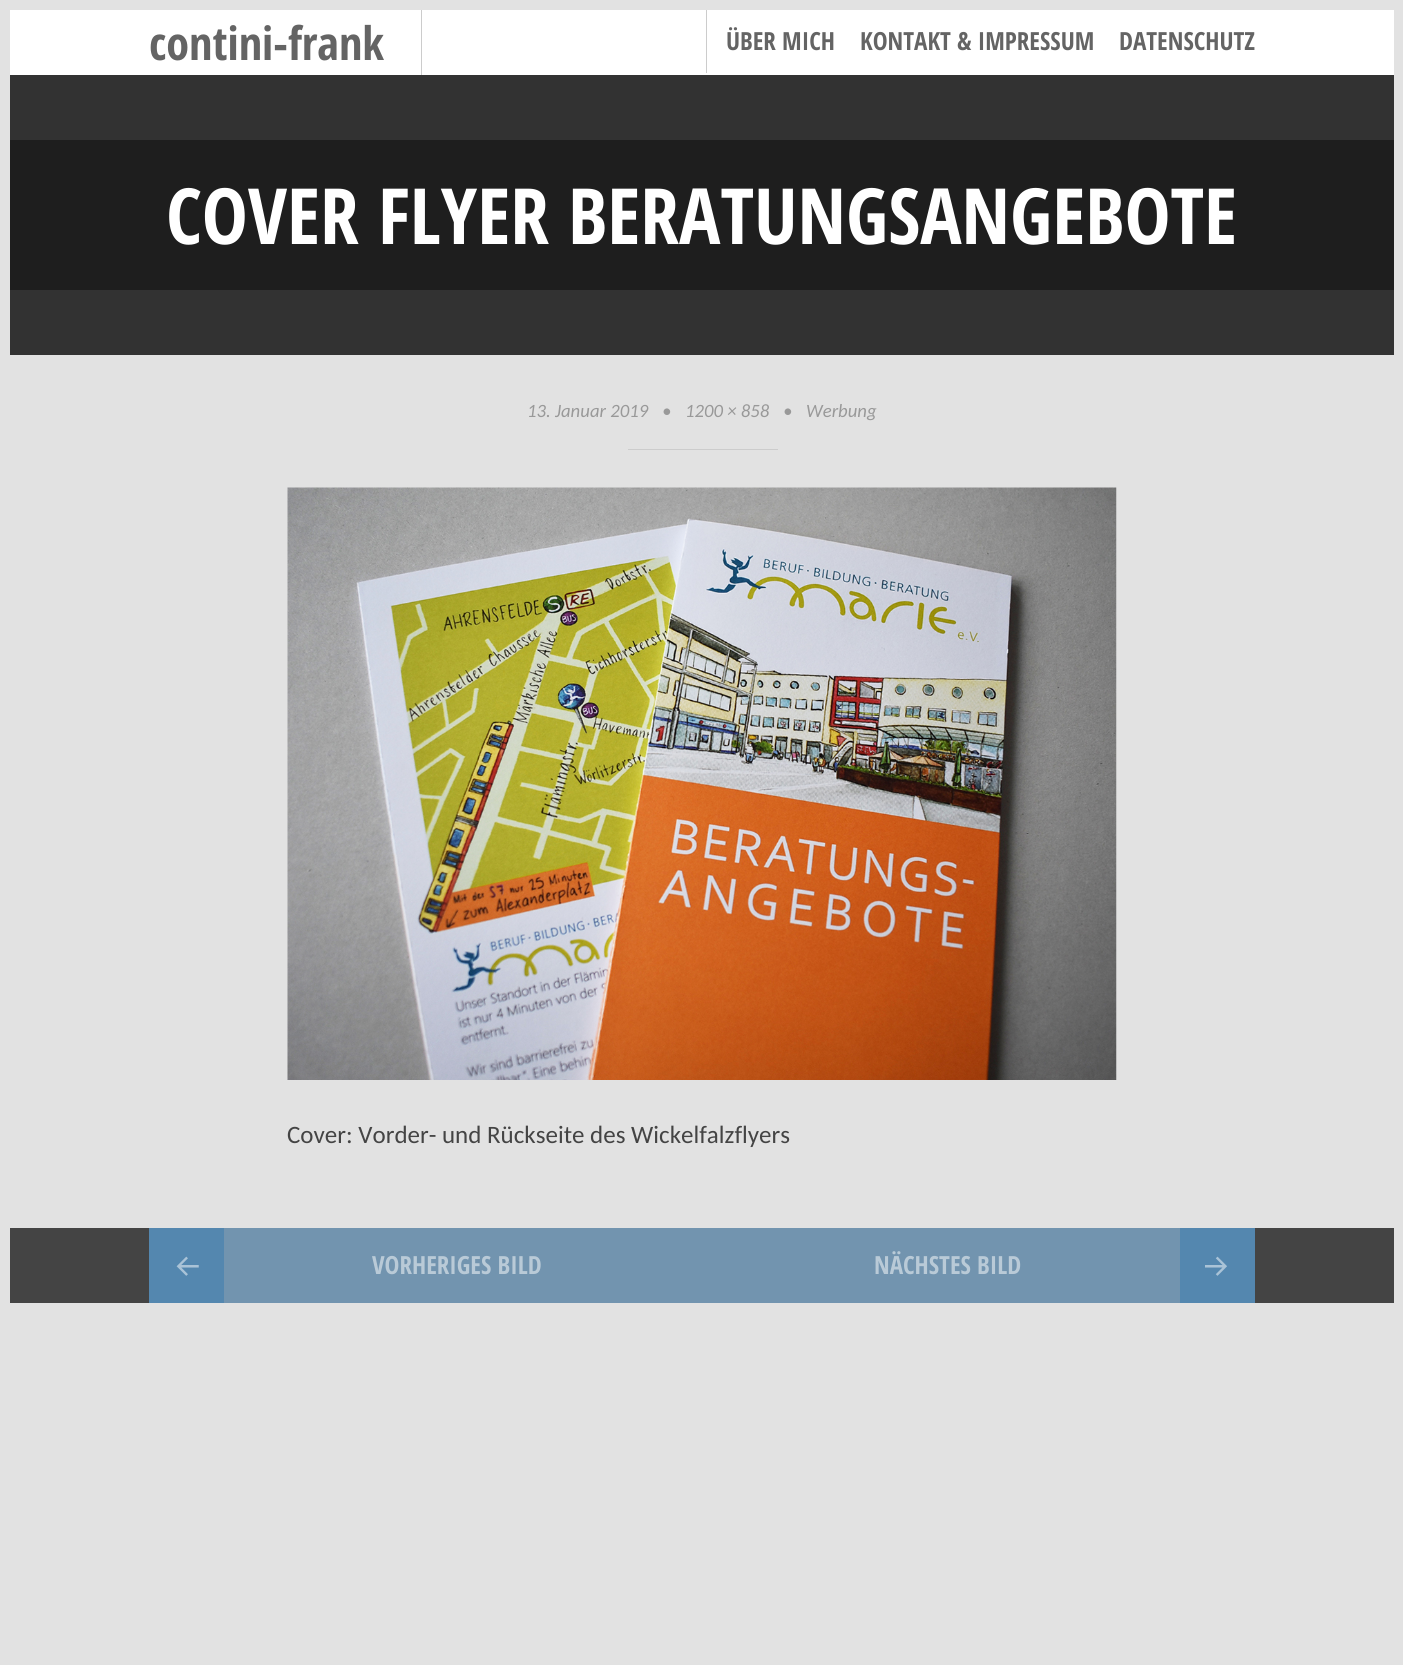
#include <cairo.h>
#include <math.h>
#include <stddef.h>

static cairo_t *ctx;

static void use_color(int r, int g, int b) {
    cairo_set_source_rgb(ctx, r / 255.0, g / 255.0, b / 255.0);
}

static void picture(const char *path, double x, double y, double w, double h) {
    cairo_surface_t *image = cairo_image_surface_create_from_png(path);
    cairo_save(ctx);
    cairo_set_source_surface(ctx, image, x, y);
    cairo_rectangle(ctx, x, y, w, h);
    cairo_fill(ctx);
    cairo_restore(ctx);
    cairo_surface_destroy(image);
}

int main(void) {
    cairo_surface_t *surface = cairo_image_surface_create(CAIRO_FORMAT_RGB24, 1403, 1665);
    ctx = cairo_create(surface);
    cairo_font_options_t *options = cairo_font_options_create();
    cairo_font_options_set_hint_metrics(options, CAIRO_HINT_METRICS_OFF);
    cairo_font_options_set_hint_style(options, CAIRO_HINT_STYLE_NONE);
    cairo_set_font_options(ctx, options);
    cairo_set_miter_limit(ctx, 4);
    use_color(226, 226, 226);
    cairo_paint(ctx);
    use_color(255, 255, 255);
    cairo_rectangle(ctx, 10, 10, 1384, 65);
    cairo_fill(ctx);
    use_color(204, 204, 204);
    cairo_rectangle(ctx, 421, 10, 1, 65);
    cairo_fill(ctx);
    cairo_select_font_face(ctx, "Open Sans Condensed", CAIRO_FONT_SLANT_NORMAL, CAIRO_FONT_WEIGHT_BOLD);
    cairo_set_font_size(ctx, 46.25);
    use_color(100, 100, 100);
    cairo_move_to(ctx, 149, 60);
    cairo_show_text(ctx, "contini-frank");
    use_color(204, 204, 204);
    cairo_rectangle(ctx, 706, 10, 1, 63);
    cairo_fill(ctx);
    cairo_set_font_size(ctx, 25);
    use_color(100, 100, 100);
    cairo_move_to(ctx, 726, 50);
    cairo_show_text(ctx, "ÜBER MICH");
    cairo_move_to(ctx, 860, 50);
    cairo_show_text(ctx, "KONTAKT & IMPRESSUM");
    cairo_move_to(ctx, 1119, 50);
    cairo_show_text(ctx, "DATENSCHUTZ");
    use_color(30, 30, 30);
    cairo_rectangle(ctx, 10, 140, 1384, 150);
    cairo_fill(ctx);
    use_color(50, 50, 50);
    cairo_rectangle(ctx, 10, 75, 1384, 65);
    cairo_fill(ctx);
    cairo_rectangle(ctx, 10, 290, 1384, 65);
    cairo_fill(ctx);
    cairo_set_font_size(ctx, 77.5);
    use_color(255, 255, 255);
    cairo_move_to(ctx, 166, 244);
    cairo_show_text(ctx, "COVER FLYER BERATUNGSANGEBOTE");
    cairo_select_font_face(ctx, "Carlito", CAIRO_FONT_SLANT_ITALIC, CAIRO_FONT_WEIGHT_NORMAL);
    cairo_set_font_size(ctx, 18.75);
    use_color(153, 153, 153);
    cairo_move_to(ctx, 527, 417);
    cairo_show_text(ctx, "13. Januar 2019");
    cairo_move_to(ctx, 662, 417);
    cairo_show_text(ctx, "•");
    cairo_move_to(ctx, 685, 417);
    cairo_show_text(ctx, "1200 × 858");
    cairo_move_to(ctx, 783, 417);
    cairo_show_text(ctx, "•");
    cairo_move_to(ctx, 806, 417);
    cairo_show_text(ctx, "Werbung");
    use_color(204, 204, 204);
    cairo_rectangle(ctx, 628, 449, 150, 1);
    cairo_fill(ctx);
    picture("img1.png", 287, 487, 830, 593);
    cairo_select_font_face(ctx, "Carlito", CAIRO_FONT_SLANT_NORMAL, CAIRO_FONT_WEIGHT_NORMAL);
    cairo_set_font_size(ctx, 25);
    use_color(68, 68, 68);
    cairo_move_to(ctx, 287, 1143);
    cairo_show_text(ctx, "Cover: Vorder- und Rückseite des Wickelfalzflyers");
    cairo_rectangle(ctx, 10, 1228, 1384, 75);
    cairo_fill(ctx);
    use_color(114, 148, 175);
    cairo_rectangle(ctx, 224, 1228, 956, 75);
    cairo_fill(ctx);
    use_color(84, 135, 175);
    cairo_rectangle(ctx, 149, 1228, 75, 75);
    cairo_fill(ctx);
    picture("img2.png", 176, 1256, 23, 20);
    cairo_select_font_face(ctx, "Open Sans Condensed", CAIRO_FONT_SLANT_NORMAL, CAIRO_FONT_WEIGHT_BOLD);
    use_color(185, 202, 215);
    cairo_move_to(ctx, 372, 1274);
    cairo_show_text(ctx, "VORHERIGES BILD");
    cairo_move_to(ctx, 874, 1274);
    cairo_show_text(ctx, "NÄCHSTES BILD");
    use_color(84, 135, 175);
    cairo_rectangle(ctx, 1180, 1228, 75, 75);
    cairo_fill(ctx);
    picture("img3.png", 1205, 1256, 22, 20);
    cairo_surface_write_to_png(surface, "result.png");
    cairo_font_options_destroy(options);
    cairo_destroy(ctx);
    cairo_surface_destroy(surface);
    return 0;
}
